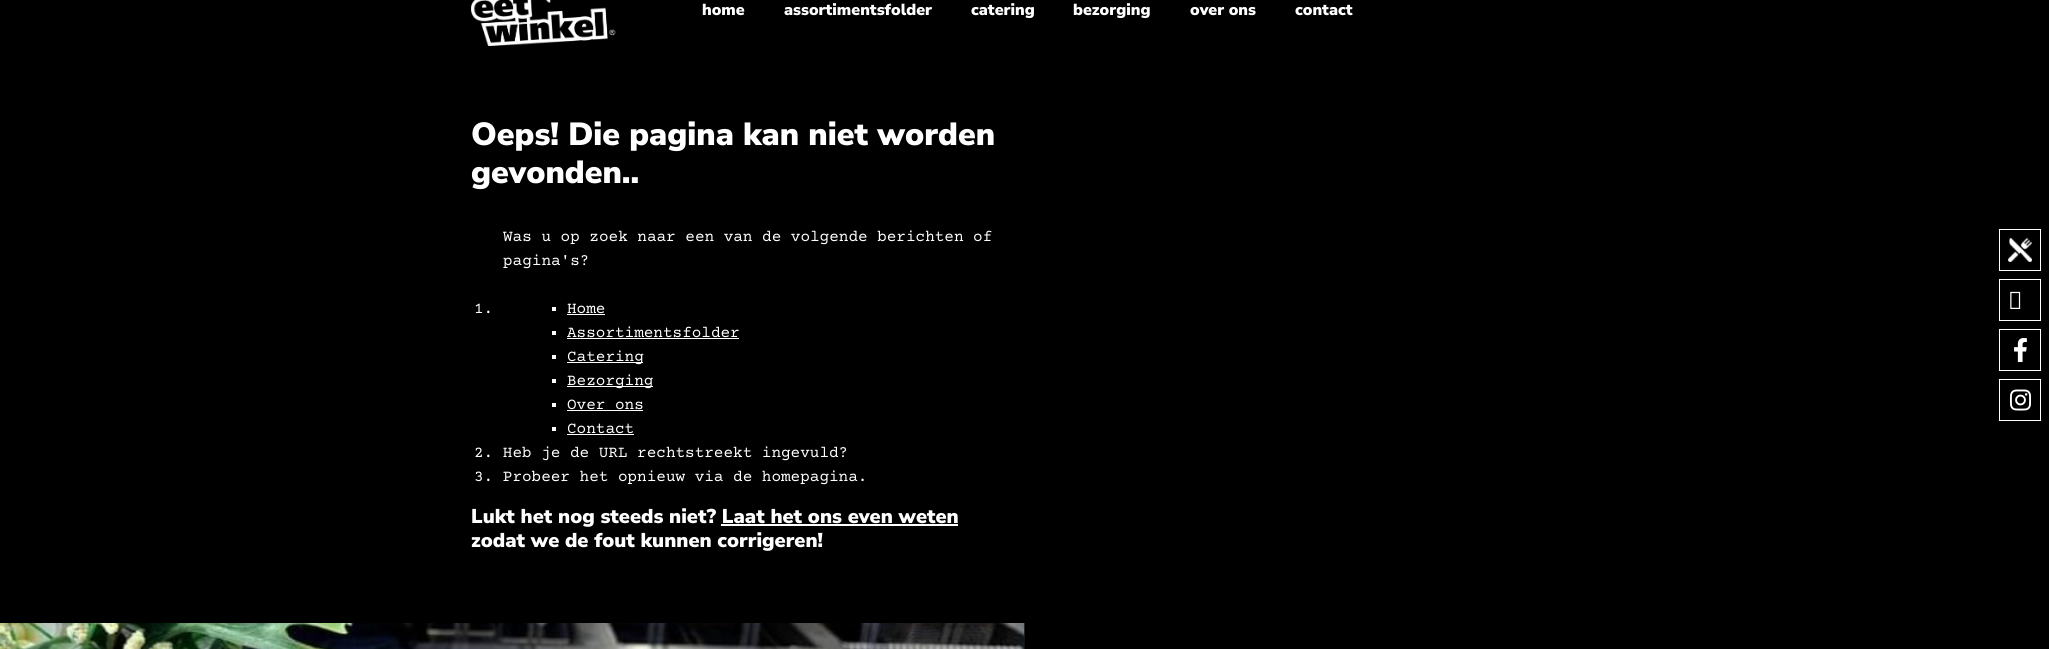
#include <cairo.h>
#include <math.h>
#include <stddef.h>

static cairo_t *ctx;

static void use_color(int r, int g, int b) {
    cairo_set_source_rgb(ctx, r / 255.0, g / 255.0, b / 255.0);
}

static void picture(const char *path, double x, double y, double w, double h) {
    cairo_surface_t *image = cairo_image_surface_create_from_png(path);
    cairo_save(ctx);
    cairo_set_source_surface(ctx, image, x, y);
    cairo_rectangle(ctx, x, y, w, h);
    cairo_fill(ctx);
    cairo_restore(ctx);
    cairo_surface_destroy(image);
}

int main(void) {
    cairo_surface_t *surface = cairo_image_surface_create(CAIRO_FORMAT_RGB24, 2049, 649);
    ctx = cairo_create(surface);
    cairo_font_options_t *options = cairo_font_options_create();
    cairo_font_options_set_hint_metrics(options, CAIRO_HINT_METRICS_OFF);
    cairo_font_options_set_hint_style(options, CAIRO_HINT_STYLE_NONE);
    cairo_set_font_options(ctx, options);
    cairo_set_miter_limit(ctx, 4);
    use_color(0, 0, 0);
    cairo_paint(ctx);
    picture("img1.png", 471, 0, 145, 46);
    cairo_select_font_face(ctx, "Nunito Sans ExtraLight", CAIRO_FONT_SLANT_NORMAL, CAIRO_FONT_WEIGHT_NORMAL);
    cairo_set_font_size(ctx, 16);
    use_color(255, 255, 255);
    cairo_move_to(ctx, 702, 15);
    cairo_show_text(ctx, "home");
    cairo_move_to(ctx, 784, 15);
    cairo_show_text(ctx, "assortimentsfolder");
    cairo_move_to(ctx, 971, 15);
    cairo_show_text(ctx, "catering");
    cairo_move_to(ctx, 1073, 15);
    cairo_show_text(ctx, "bezorging");
    cairo_move_to(ctx, 1190, 15);
    cairo_show_text(ctx, "over ons");
    cairo_move_to(ctx, 1295, 15);
    cairo_show_text(ctx, "contact");
    cairo_set_font_size(ctx, 32);
    cairo_move_to(ctx, 471, 145);
    cairo_show_text(ctx, "Oeps! Die pagina kan niet worden");
    cairo_move_to(ctx, 471, 183);
    cairo_show_text(ctx, "gevonden..");
    cairo_select_font_face(ctx, "Courier Prime", CAIRO_FONT_SLANT_NORMAL, CAIRO_FONT_WEIGHT_NORMAL);
    cairo_set_font_size(ctx, 16);
    cairo_move_to(ctx, 503, 241);
    cairo_show_text(ctx, "Was u op zoek naar een van de volgende berichten of");
    cairo_move_to(ctx, 503, 265);
    cairo_show_text(ctx, "pagina's?");
    cairo_move_to(ctx, 474, 313);
    cairo_show_text(ctx, "1.");
    cairo_rectangle(ctx, 552, 307, 4, 4);
    cairo_fill(ctx);
    cairo_move_to(ctx, 567, 313);
    cairo_show_text(ctx, "Home");
    cairo_rectangle(ctx, 567, 314, 38, 1);
    cairo_fill(ctx);
    cairo_rectangle(ctx, 552, 331, 4, 4);
    cairo_fill(ctx);
    cairo_move_to(ctx, 567, 337);
    cairo_show_text(ctx, "Assortimentsfolder");
    cairo_rectangle(ctx, 567, 338, 172, 1);
    cairo_fill(ctx);
    cairo_rectangle(ctx, 552, 355, 4, 4);
    cairo_fill(ctx);
    cairo_rectangle(ctx, 567, 362, 76, 1);
    cairo_fill(ctx);
    cairo_move_to(ctx, 567, 361);
    cairo_show_text(ctx, "Catering");
    cairo_rectangle(ctx, 552, 379, 4, 4);
    cairo_fill(ctx);
    cairo_rectangle(ctx, 567, 386, 86, 1);
    cairo_fill(ctx);
    cairo_move_to(ctx, 567, 385);
    cairo_show_text(ctx, "Bezorging");
    cairo_rectangle(ctx, 552, 403, 4, 4);
    cairo_fill(ctx);
    cairo_move_to(ctx, 567, 409);
    cairo_show_text(ctx, "Over ons");
    cairo_rectangle(ctx, 567, 410, 76, 1);
    cairo_fill(ctx);
    cairo_rectangle(ctx, 552, 427, 4, 4);
    cairo_fill(ctx);
    cairo_move_to(ctx, 567, 433);
    cairo_show_text(ctx, "Contact");
    cairo_rectangle(ctx, 567, 434, 67, 1);
    cairo_fill(ctx);
    cairo_move_to(ctx, 474, 457);
    cairo_show_text(ctx, "2. Heb je de URL rechtstreekt ingevuld?");
    cairo_move_to(ctx, 474, 481);
    cairo_show_text(ctx, "3. Probeer het opnieuw via de homepagina.");
    cairo_select_font_face(ctx, "Nunito Sans ExtraLight", CAIRO_FONT_SLANT_NORMAL, CAIRO_FONT_WEIGHT_NORMAL);
    cairo_set_font_size(ctx, 20);
    cairo_move_to(ctx, 471, 523);
    cairo_show_text(ctx, "Lukt het nog steeds niet? Laat het ons even weten");
    cairo_rectangle(ctx, 721, 524, 237, 2);
    cairo_fill(ctx);
    cairo_move_to(ctx, 471, 547);
    cairo_show_text(ctx, "zodat we de fout kunnen corrigeren!");
    cairo_rectangle(ctx, 1999.5, 229.5, 41, 41);
    cairo_set_line_width(ctx, 1);
    cairo_stroke(ctx);
    picture("img2.png", 2008, 238, 24, 24);
    cairo_rectangle(ctx, 1999.5, 279.5, 41, 41);
    cairo_stroke(ctx);
    picture("img3.png", 2010, 291, 11, 18);
    cairo_rectangle(ctx, 1999.5, 329.5, 41, 41);
    cairo_stroke(ctx);
    picture("img4.png", 2014, 338, 13, 24);
    cairo_rectangle(ctx, 1999.5, 379.5, 41, 41);
    cairo_stroke(ctx);
    picture("img5.png", 2010, 389, 21, 22);
    picture("img6.png", 0, 623, 1025, 26);
    cairo_surface_write_to_png(surface, "result.png");
    cairo_font_options_destroy(options);
    cairo_destroy(ctx);
    cairo_surface_destroy(surface);
    return 0;
}
